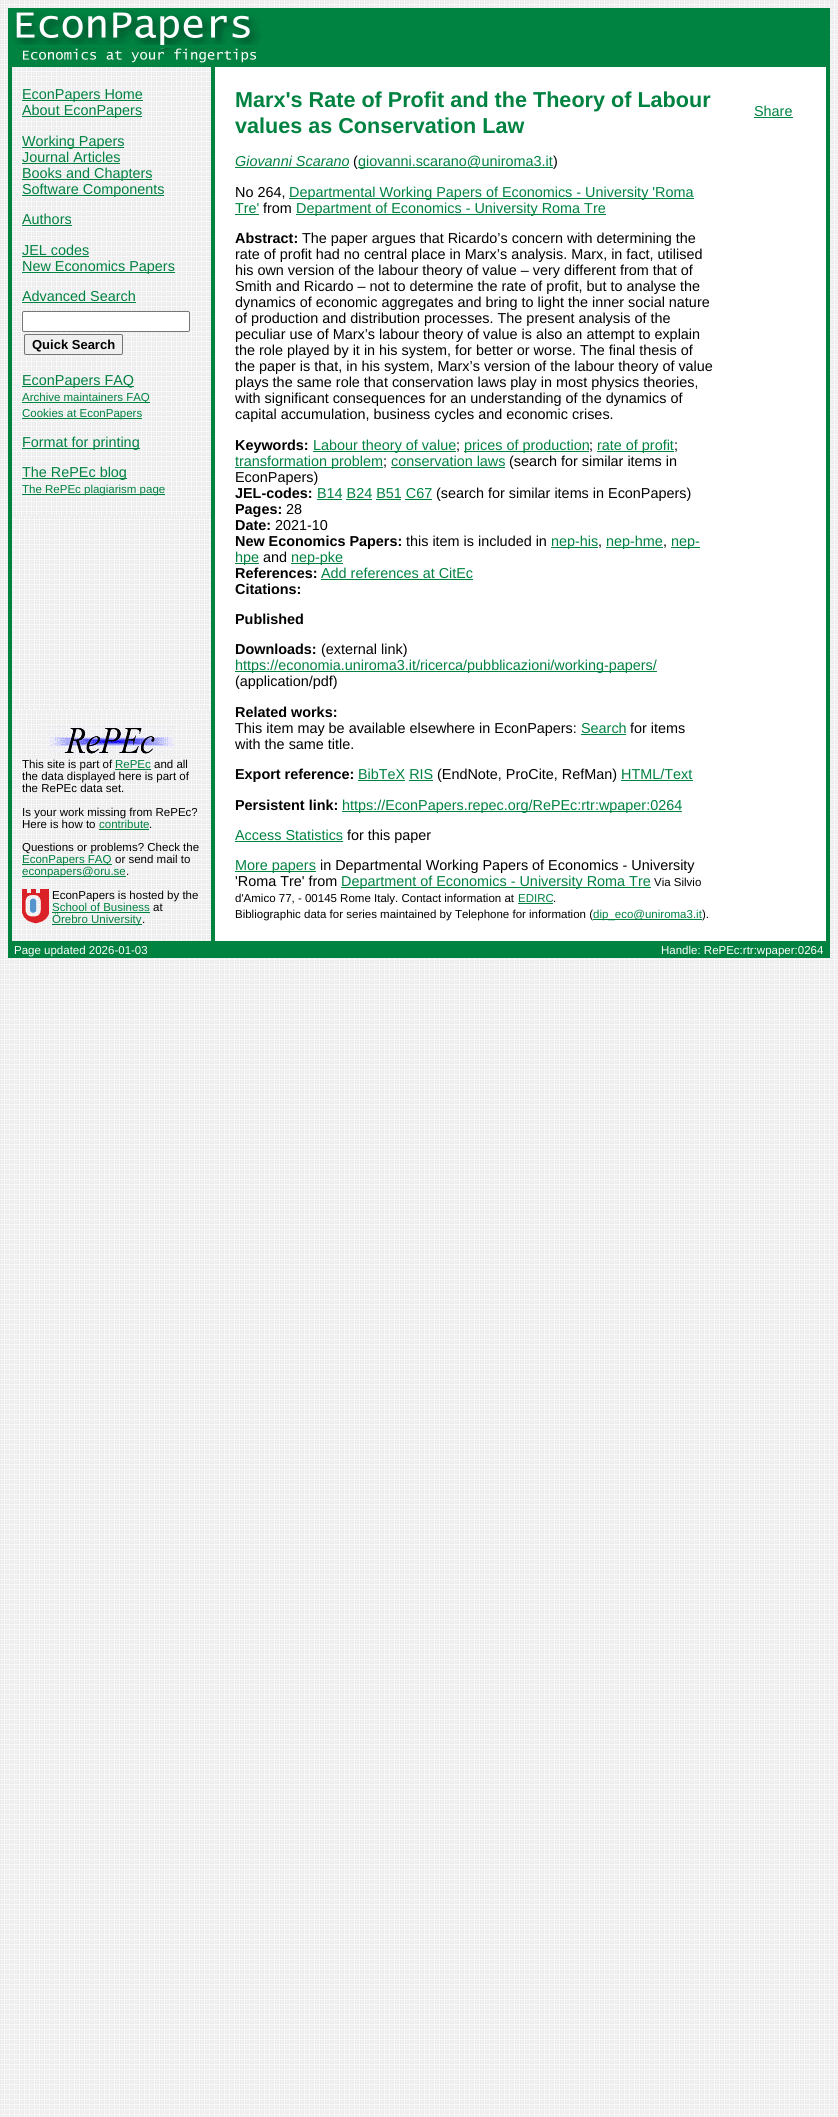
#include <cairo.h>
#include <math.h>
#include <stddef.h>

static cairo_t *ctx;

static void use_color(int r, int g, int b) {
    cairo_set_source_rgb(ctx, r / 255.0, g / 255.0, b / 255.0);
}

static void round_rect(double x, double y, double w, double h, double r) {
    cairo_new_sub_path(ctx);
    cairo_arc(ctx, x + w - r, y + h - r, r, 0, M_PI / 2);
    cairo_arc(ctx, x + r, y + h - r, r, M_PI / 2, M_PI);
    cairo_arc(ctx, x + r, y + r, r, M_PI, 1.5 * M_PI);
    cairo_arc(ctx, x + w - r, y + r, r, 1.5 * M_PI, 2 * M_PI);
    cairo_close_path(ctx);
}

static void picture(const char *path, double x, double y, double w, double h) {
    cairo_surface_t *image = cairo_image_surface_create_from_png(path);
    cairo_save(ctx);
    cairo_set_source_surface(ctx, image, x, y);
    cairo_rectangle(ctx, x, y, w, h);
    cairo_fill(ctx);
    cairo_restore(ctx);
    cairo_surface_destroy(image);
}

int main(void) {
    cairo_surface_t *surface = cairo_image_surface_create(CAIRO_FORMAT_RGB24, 838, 2117);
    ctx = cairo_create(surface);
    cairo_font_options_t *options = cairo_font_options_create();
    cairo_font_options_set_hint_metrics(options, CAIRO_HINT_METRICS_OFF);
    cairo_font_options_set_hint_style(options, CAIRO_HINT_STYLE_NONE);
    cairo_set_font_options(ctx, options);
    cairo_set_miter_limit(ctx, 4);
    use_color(255, 255, 255);
    cairo_paint(ctx);
    picture("img1.png", 0, 0, 838, 2117);
    use_color(0, 130, 65);
    cairo_rectangle(ctx, 8, 8, 4, 950);
    cairo_fill(ctx);
    cairo_rectangle(ctx, 12, 8, 814, 40);
    cairo_fill(ctx);
    picture("img2.png", 13, 10, 249, 35);
    cairo_rectangle(ctx, 826, 8, 4, 950);
    cairo_fill(ctx);
    cairo_rectangle(ctx, 12, 48, 814, 19);
    cairo_fill(ctx);
    picture("img3.png", 18, 48, 239, 15);
    picture("img4.png", 12, 67, 199, 449);
    cairo_rectangle(ctx, 22, 100, 121, 1);
    cairo_fill(ctx);
    cairo_select_font_face(ctx, "Liberation Sans", CAIRO_FONT_SLANT_NORMAL, CAIRO_FONT_WEIGHT_NORMAL);
    cairo_set_font_size(ctx, 14.4);
    cairo_move_to(ctx, 22, 99);
    cairo_show_text(ctx, "EconPapers Home");
    cairo_rectangle(ctx, 22, 116, 120, 1);
    cairo_fill(ctx);
    cairo_move_to(ctx, 22, 115);
    cairo_show_text(ctx, "About EconPapers");
    cairo_rectangle(ctx, 22, 147, 102, 1);
    cairo_fill(ctx);
    cairo_move_to(ctx, 22, 146);
    cairo_show_text(ctx, "Working Papers");
    cairo_move_to(ctx, 22, 162);
    cairo_show_text(ctx, "Journal Articles");
    cairo_rectangle(ctx, 22, 163, 98, 1);
    cairo_fill(ctx);
    cairo_rectangle(ctx, 22, 179, 130, 1);
    cairo_fill(ctx);
    cairo_move_to(ctx, 22, 178);
    cairo_show_text(ctx, "Books and Chapters");
    cairo_rectangle(ctx, 22, 195, 142, 1);
    cairo_fill(ctx);
    cairo_move_to(ctx, 22, 194);
    cairo_show_text(ctx, "Software Components");
    cairo_move_to(ctx, 22, 224);
    cairo_show_text(ctx, "Authors");
    cairo_rectangle(ctx, 22, 225, 50, 1);
    cairo_fill(ctx);
    cairo_move_to(ctx, 22, 255);
    cairo_show_text(ctx, "JEL codes");
    cairo_rectangle(ctx, 22, 256, 67, 1);
    cairo_fill(ctx);
    cairo_rectangle(ctx, 22, 272, 153, 1);
    cairo_fill(ctx);
    cairo_move_to(ctx, 22, 271);
    cairo_show_text(ctx, "New Economics Papers");
    cairo_move_to(ctx, 22, 301);
    cairo_show_text(ctx, "Advanced Search");
    cairo_rectangle(ctx, 22, 302, 114, 1);
    cairo_fill(ctx);
    use_color(255, 255, 255);
    round_rect(22.5, 311.5, 167, 20, 1.5);
    cairo_fill_preserve(ctx);
    use_color(118, 118, 118);
    cairo_set_line_width(ctx, 1);
    cairo_stroke(ctx);
    use_color(239, 239, 239);
    round_rect(24.5, 334.5, 98, 20, 1.5);
    cairo_fill_preserve(ctx);
    use_color(118, 118, 118);
    cairo_stroke(ctx);
    cairo_select_font_face(ctx, "Liberation Sans", CAIRO_FONT_SLANT_NORMAL, CAIRO_FONT_WEIGHT_BOLD);
    cairo_set_font_size(ctx, 13);
    use_color(0, 0, 0);
    cairo_move_to(ctx, 32, 349);
    cairo_show_text(ctx, "Quick Search");
    use_color(0, 130, 65);
    cairo_rectangle(ctx, 22, 386, 112, 1);
    cairo_fill(ctx);
    cairo_select_font_face(ctx, "Liberation Sans", CAIRO_FONT_SLANT_NORMAL, CAIRO_FONT_WEIGHT_NORMAL);
    cairo_set_font_size(ctx, 14.4);
    cairo_move_to(ctx, 22, 385);
    cairo_show_text(ctx, "EconPapers FAQ");
    cairo_rectangle(ctx, 22, 402, 128, 1);
    cairo_fill(ctx);
    cairo_set_font_size(ctx, 11.5);
    cairo_move_to(ctx, 22, 401);
    cairo_show_text(ctx, "Archive maintainers FAQ");
    cairo_rectangle(ctx, 22, 418, 120, 1);
    cairo_fill(ctx);
    cairo_move_to(ctx, 22, 417);
    cairo_show_text(ctx, "Cookies at EconPapers");
    cairo_rectangle(ctx, 22, 448, 118, 1);
    cairo_fill(ctx);
    cairo_set_font_size(ctx, 14.4);
    cairo_move_to(ctx, 22, 447);
    cairo_show_text(ctx, "Format for printing");
    cairo_rectangle(ctx, 22, 478, 105, 1);
    cairo_fill(ctx);
    cairo_move_to(ctx, 22, 477);
    cairo_show_text(ctx, "The RePEc blog");
    cairo_rectangle(ctx, 22, 494, 143, 1);
    cairo_fill(ctx);
    cairo_set_font_size(ctx, 11.5);
    cairo_move_to(ctx, 22, 493);
    cairo_show_text(ctx, "The RePEc plagiarism page");
    cairo_rectangle(ctx, 211, 67, 4, 874);
    cairo_fill(ctx);
    use_color(255, 255, 255);
    cairo_rectangle(ctx, 215, 67, 611, 874);
    cairo_fill(ctx);
    cairo_select_font_face(ctx, "Liberation Sans", CAIRO_FONT_SLANT_NORMAL, CAIRO_FONT_WEIGHT_BOLD);
    cairo_set_font_size(ctx, 21.6);
    use_color(0, 130, 65);
    cairo_move_to(ctx, 235, 107);
    cairo_show_text(ctx, "Marx's Rate of Profit and the Theory of Labour");
    cairo_move_to(ctx, 235, 133);
    cairo_show_text(ctx, "values as Conservation Law");
    cairo_select_font_face(ctx, "Liberation Sans", CAIRO_FONT_SLANT_ITALIC, CAIRO_FONT_WEIGHT_NORMAL);
    cairo_set_font_size(ctx, 14.4);
    cairo_move_to(ctx, 235, 166);
    cairo_show_text(ctx, "Giovanni Scarano");
    cairo_rectangle(ctx, 235, 167, 114, 1);
    cairo_fill(ctx);
    cairo_select_font_face(ctx, "Liberation Sans", CAIRO_FONT_SLANT_NORMAL, CAIRO_FONT_WEIGHT_NORMAL);
    use_color(0, 0, 0);
    cairo_move_to(ctx, 353, 166);
    cairo_show_text(ctx, "(");
    use_color(0, 130, 65);
    cairo_rectangle(ctx, 358, 167, 195, 1);
    cairo_fill(ctx);
    cairo_move_to(ctx, 358, 166);
    cairo_show_text(ctx, "giovanni.scarano@uniroma3.it");
    use_color(0, 0, 0);
    cairo_move_to(ctx, 553, 166);
    cairo_show_text(ctx, ")");
    cairo_move_to(ctx, 235, 197);
    cairo_show_text(ctx, "No 264,");
    use_color(0, 130, 65);
    cairo_rectangle(ctx, 289, 198, 405, 1);
    cairo_fill(ctx);
    cairo_move_to(ctx, 289, 197);
    cairo_show_text(ctx, "Departmental Working Papers of Economics - University 'Roma");
    cairo_move_to(ctx, 235, 213);
    cairo_show_text(ctx, "Tre'");
    cairo_rectangle(ctx, 235, 214, 24, 1);
    cairo_fill(ctx);
    use_color(0, 0, 0);
    cairo_move_to(ctx, 263, 213);
    cairo_show_text(ctx, "from");
    use_color(0, 130, 65);
    cairo_rectangle(ctx, 296, 214, 310, 1);
    cairo_fill(ctx);
    cairo_move_to(ctx, 296, 213);
    cairo_show_text(ctx, "Department of Economics - University Roma Tre");
    cairo_select_font_face(ctx, "Liberation Sans", CAIRO_FONT_SLANT_NORMAL, CAIRO_FONT_WEIGHT_BOLD);
    use_color(0, 0, 0);
    cairo_move_to(ctx, 235, 243);
    cairo_show_text(ctx, "Abstract:");
    cairo_select_font_face(ctx, "Liberation Sans", CAIRO_FONT_SLANT_NORMAL, CAIRO_FONT_WEIGHT_NORMAL);
    cairo_move_to(ctx, 302, 243);
    cairo_show_text(ctx, "The paper argues that Ricardo’s concern with determining the");
    cairo_move_to(ctx, 235, 259);
    cairo_show_text(ctx, "rate of profit had no central place in Marx’s analysis. Marx, in fact, utilised");
    cairo_move_to(ctx, 235, 275);
    cairo_show_text(ctx, "his own version of the labour theory of value – very different from that of");
    cairo_move_to(ctx, 235, 291);
    cairo_show_text(ctx, "Smith and Ricardo – not to determine the rate of profit, but to analyse the");
    cairo_move_to(ctx, 235, 307);
    cairo_show_text(ctx, "dynamics of economic aggregates and bring to light the inner social nature");
    cairo_move_to(ctx, 235, 323);
    cairo_show_text(ctx, "of production and distribution processes. The present analysis of the");
    cairo_move_to(ctx, 235, 339);
    cairo_show_text(ctx, "peculiar use of Marx’s labour theory of value is also an attempt to explain");
    cairo_move_to(ctx, 235, 355);
    cairo_show_text(ctx, "the role played by it in his system, for better or worse. The final thesis of");
    cairo_move_to(ctx, 235, 371);
    cairo_show_text(ctx, "the paper is that, in his system, Marx’s version of the labour theory of value");
    cairo_move_to(ctx, 235, 387);
    cairo_show_text(ctx, "plays the same role that conservation laws play in most physics theories,");
    cairo_move_to(ctx, 235, 403);
    cairo_show_text(ctx, "with significant consequences for an understanding of the dynamics of");
    cairo_move_to(ctx, 235, 419);
    cairo_show_text(ctx, "capital accumulation, business cycles and economic crises.");
    cairo_select_font_face(ctx, "Liberation Sans", CAIRO_FONT_SLANT_NORMAL, CAIRO_FONT_WEIGHT_BOLD);
    cairo_move_to(ctx, 235, 450);
    cairo_show_text(ctx, "Keywords:");
    use_color(0, 130, 65);
    cairo_rectangle(ctx, 313, 451, 143, 1);
    cairo_fill(ctx);
    cairo_select_font_face(ctx, "Liberation Sans", CAIRO_FONT_SLANT_NORMAL, CAIRO_FONT_WEIGHT_NORMAL);
    cairo_move_to(ctx, 313, 450);
    cairo_show_text(ctx, "Labour theory of value");
    use_color(0, 0, 0);
    cairo_move_to(ctx, 456, 450);
    cairo_show_text(ctx, ";");
    use_color(0, 130, 65);
    cairo_rectangle(ctx, 464, 451, 125, 1);
    cairo_fill(ctx);
    cairo_move_to(ctx, 464, 450);
    cairo_show_text(ctx, "prices of production");
    use_color(0, 0, 0);
    cairo_move_to(ctx, 589, 450);
    cairo_show_text(ctx, ";");
    use_color(0, 130, 65);
    cairo_rectangle(ctx, 597, 451, 77, 1);
    cairo_fill(ctx);
    cairo_move_to(ctx, 597, 450);
    cairo_show_text(ctx, "rate of profit");
    use_color(0, 0, 0);
    cairo_move_to(ctx, 674, 450);
    cairo_show_text(ctx, ";");
    use_color(0, 130, 65);
    cairo_rectangle(ctx, 235, 467, 148, 1);
    cairo_fill(ctx);
    cairo_move_to(ctx, 235, 466);
    cairo_show_text(ctx, "transformation problem");
    use_color(0, 0, 0);
    cairo_move_to(ctx, 383, 466);
    cairo_show_text(ctx, ";");
    use_color(0, 130, 65);
    cairo_move_to(ctx, 391, 466);
    cairo_show_text(ctx, "conservation laws");
    cairo_rectangle(ctx, 391, 467, 114, 1);
    cairo_fill(ctx);
    use_color(0, 0, 0);
    cairo_move_to(ctx, 509, 466);
    cairo_show_text(ctx, "(search for similar items in");
    cairo_move_to(ctx, 235, 482);
    cairo_show_text(ctx, "EconPapers)");
    cairo_select_font_face(ctx, "Liberation Sans", CAIRO_FONT_SLANT_NORMAL, CAIRO_FONT_WEIGHT_BOLD);
    cairo_move_to(ctx, 235, 498);
    cairo_show_text(ctx, "JEL-codes:");
    cairo_select_font_face(ctx, "Liberation Sans", CAIRO_FONT_SLANT_NORMAL, CAIRO_FONT_WEIGHT_NORMAL);
    use_color(0, 130, 65);
    cairo_move_to(ctx, 317, 498);
    cairo_show_text(ctx, "B14 B24 B51 C67");
    cairo_rectangle(ctx, 317, 499, 25, 1);
    cairo_fill(ctx);
    use_color(0, 0, 0);
    cairo_move_to(ctx, 436, 498);
    cairo_show_text(ctx, "(search for similar items in EconPapers)");
    use_color(0, 130, 65);
    cairo_rectangle(ctx, 346, 499, 26, 1);
    cairo_fill(ctx);
    cairo_rectangle(ctx, 376, 499, 25, 1);
    cairo_fill(ctx);
    cairo_rectangle(ctx, 405, 499, 27, 1);
    cairo_fill(ctx);
    cairo_select_font_face(ctx, "Liberation Sans", CAIRO_FONT_SLANT_NORMAL, CAIRO_FONT_WEIGHT_BOLD);
    use_color(0, 0, 0);
    cairo_move_to(ctx, 235, 514);
    cairo_show_text(ctx, "Pages:");
    cairo_select_font_face(ctx, "Liberation Sans", CAIRO_FONT_SLANT_NORMAL, CAIRO_FONT_WEIGHT_NORMAL);
    cairo_move_to(ctx, 286, 514);
    cairo_show_text(ctx, "28");
    cairo_select_font_face(ctx, "Liberation Sans", CAIRO_FONT_SLANT_NORMAL, CAIRO_FONT_WEIGHT_BOLD);
    cairo_move_to(ctx, 235, 530);
    cairo_show_text(ctx, "Date:");
    cairo_select_font_face(ctx, "Liberation Sans", CAIRO_FONT_SLANT_NORMAL, CAIRO_FONT_WEIGHT_NORMAL);
    cairo_move_to(ctx, 275, 530);
    cairo_show_text(ctx, "2021-10");
    cairo_select_font_face(ctx, "Liberation Sans", CAIRO_FONT_SLANT_NORMAL, CAIRO_FONT_WEIGHT_BOLD);
    cairo_move_to(ctx, 235, 546);
    cairo_show_text(ctx, "New Economics Papers:");
    cairo_select_font_face(ctx, "Liberation Sans", CAIRO_FONT_SLANT_NORMAL, CAIRO_FONT_WEIGHT_NORMAL);
    cairo_move_to(ctx, 406, 546);
    cairo_show_text(ctx, "this item is included in");
    use_color(0, 130, 65);
    cairo_rectangle(ctx, 551, 547, 47, 1);
    cairo_fill(ctx);
    cairo_move_to(ctx, 551, 546);
    cairo_show_text(ctx, "nep-his");
    use_color(0, 0, 0);
    cairo_move_to(ctx, 598, 546);
    cairo_show_text(ctx, ",");
    use_color(0, 130, 65);
    cairo_rectangle(ctx, 606, 547, 57, 1);
    cairo_fill(ctx);
    cairo_move_to(ctx, 606, 546);
    cairo_show_text(ctx, "nep-hme");
    use_color(0, 0, 0);
    cairo_move_to(ctx, 663, 546);
    cairo_show_text(ctx, ",");
    use_color(0, 130, 65);
    cairo_rectangle(ctx, 671, 547, 29, 1);
    cairo_fill(ctx);
    cairo_move_to(ctx, 671, 546);
    cairo_show_text(ctx, "nep-");
    cairo_rectangle(ctx, 235, 563, 24, 1);
    cairo_fill(ctx);
    cairo_move_to(ctx, 235, 562);
    cairo_show_text(ctx, "hpe");
    use_color(0, 0, 0);
    cairo_move_to(ctx, 263, 562);
    cairo_show_text(ctx, "and");
    use_color(0, 130, 65);
    cairo_rectangle(ctx, 291, 563, 52, 1);
    cairo_fill(ctx);
    cairo_move_to(ctx, 291, 562);
    cairo_show_text(ctx, "nep-pke");
    cairo_select_font_face(ctx, "Liberation Sans", CAIRO_FONT_SLANT_NORMAL, CAIRO_FONT_WEIGHT_BOLD);
    use_color(0, 0, 0);
    cairo_move_to(ctx, 235, 578);
    cairo_show_text(ctx, "References:");
    cairo_select_font_face(ctx, "Liberation Sans", CAIRO_FONT_SLANT_NORMAL, CAIRO_FONT_WEIGHT_NORMAL);
    use_color(0, 130, 65);
    cairo_move_to(ctx, 321, 578);
    cairo_show_text(ctx, "Add references at CitEc");
    cairo_rectangle(ctx, 321, 579, 152, 1);
    cairo_fill(ctx);
    cairo_select_font_face(ctx, "Liberation Sans", CAIRO_FONT_SLANT_NORMAL, CAIRO_FONT_WEIGHT_BOLD);
    use_color(0, 0, 0);
    cairo_move_to(ctx, 235, 594);
    cairo_show_text(ctx, "Citations:");
    cairo_move_to(ctx, 235, 624);
    cairo_show_text(ctx, "Published");
    cairo_move_to(ctx, 235, 654);
    cairo_show_text(ctx, "Downloads:");
    cairo_select_font_face(ctx, "Liberation Sans", CAIRO_FONT_SLANT_NORMAL, CAIRO_FONT_WEIGHT_NORMAL);
    cairo_move_to(ctx, 321, 654);
    cairo_show_text(ctx, "(external link)");
    use_color(0, 130, 65);
    cairo_rectangle(ctx, 235, 671, 422, 1);
    cairo_fill(ctx);
    cairo_move_to(ctx, 235, 670);
    cairo_show_text(ctx, "https://economia.uniroma3.it/ricerca/pubblicazioni/working-papers/");
    use_color(0, 0, 0);
    cairo_move_to(ctx, 235, 686);
    cairo_show_text(ctx, "(application/pdf)");
    cairo_select_font_face(ctx, "Liberation Sans", CAIRO_FONT_SLANT_NORMAL, CAIRO_FONT_WEIGHT_BOLD);
    cairo_move_to(ctx, 235, 717);
    cairo_show_text(ctx, "Related works:");
    cairo_select_font_face(ctx, "Liberation Sans", CAIRO_FONT_SLANT_NORMAL, CAIRO_FONT_WEIGHT_NORMAL);
    cairo_move_to(ctx, 235, 733);
    cairo_show_text(ctx, "This item may be available elsewhere in EconPapers:");
    use_color(0, 130, 65);
    cairo_move_to(ctx, 581, 733);
    cairo_show_text(ctx, "Search");
    cairo_rectangle(ctx, 581, 734, 45, 1);
    cairo_fill(ctx);
    use_color(0, 0, 0);
    cairo_move_to(ctx, 630, 733);
    cairo_show_text(ctx, "for items");
    cairo_move_to(ctx, 235, 749);
    cairo_show_text(ctx, "with the same title.");
    cairo_select_font_face(ctx, "Liberation Sans", CAIRO_FONT_SLANT_NORMAL, CAIRO_FONT_WEIGHT_BOLD);
    cairo_move_to(ctx, 235, 779);
    cairo_show_text(ctx, "Export reference:");
    cairo_select_font_face(ctx, "Liberation Sans", CAIRO_FONT_SLANT_NORMAL, CAIRO_FONT_WEIGHT_NORMAL);
    use_color(0, 130, 65);
    cairo_move_to(ctx, 358, 779);
    cairo_show_text(ctx, "BibTeX RIS");
    cairo_rectangle(ctx, 358, 780, 47, 1);
    cairo_fill(ctx);
    use_color(0, 0, 0);
    cairo_move_to(ctx, 437, 779);
    cairo_show_text(ctx, "(EndNote, ProCite, RefMan)");
    use_color(0, 130, 65);
    cairo_move_to(ctx, 621, 779);
    cairo_show_text(ctx, "HTML/Text");
    cairo_rectangle(ctx, 621, 780, 72, 1);
    cairo_fill(ctx);
    cairo_rectangle(ctx, 409, 780, 24, 1);
    cairo_fill(ctx);
    cairo_select_font_face(ctx, "Liberation Sans", CAIRO_FONT_SLANT_NORMAL, CAIRO_FONT_WEIGHT_BOLD);
    use_color(0, 0, 0);
    cairo_move_to(ctx, 235, 810);
    cairo_show_text(ctx, "Persistent link:");
    use_color(0, 130, 65);
    cairo_rectangle(ctx, 342, 811, 340, 1);
    cairo_fill(ctx);
    cairo_select_font_face(ctx, "Liberation Sans", CAIRO_FONT_SLANT_NORMAL, CAIRO_FONT_WEIGHT_NORMAL);
    cairo_move_to(ctx, 342, 810);
    cairo_show_text(ctx, "https://EconPapers.repec.org/RePEc:rtr:wpaper:0264");
    cairo_move_to(ctx, 235, 840);
    cairo_show_text(ctx, "Access Statistics");
    cairo_rectangle(ctx, 235, 841, 108, 1);
    cairo_fill(ctx);
    use_color(0, 0, 0);
    cairo_move_to(ctx, 347, 840);
    cairo_show_text(ctx, "for this paper");
    use_color(0, 130, 65);
    cairo_rectangle(ctx, 235, 871, 81, 1);
    cairo_fill(ctx);
    cairo_move_to(ctx, 235, 870);
    cairo_show_text(ctx, "More papers");
    use_color(0, 0, 0);
    cairo_move_to(ctx, 320, 870);
    cairo_show_text(ctx, "in Departmental Working Papers of Economics - University");
    cairo_move_to(ctx, 235, 886);
    cairo_show_text(ctx, "'Roma Tre' from");
    use_color(0, 130, 65);
    cairo_rectangle(ctx, 341, 887, 310, 1);
    cairo_fill(ctx);
    cairo_move_to(ctx, 341, 886);
    cairo_show_text(ctx, "Department of Economics - University Roma Tre");
    cairo_set_font_size(ctx, 11.5);
    use_color(0, 0, 0);
    cairo_move_to(ctx, 654, 886);
    cairo_show_text(ctx, "Via Silvio");
    cairo_move_to(ctx, 235, 902);
    cairo_show_text(ctx, "d'Amico 77, - 00145 Rome Italy. Contact information at");
    use_color(0, 130, 65);
    cairo_move_to(ctx, 518, 902);
    cairo_show_text(ctx, "EDIRC");
    use_color(0, 0, 0);
    cairo_move_to(ctx, 553, 902);
    cairo_show_text(ctx, ".");
    use_color(0, 130, 65);
    cairo_rectangle(ctx, 518, 903, 35, 1);
    cairo_fill(ctx);
    use_color(0, 0, 0);
    cairo_move_to(ctx, 235, 918);
    cairo_show_text(ctx, "Bibliographic data for series maintained by Telephone for information (");
    use_color(0, 130, 65);
    cairo_rectangle(ctx, 593, 919, 109, 1);
    cairo_fill(ctx);
    cairo_move_to(ctx, 593, 918);
    cairo_show_text(ctx, "dip_eco@uniroma3.it");
    use_color(0, 0, 0);
    cairo_move_to(ctx, 702, 918);
    cairo_show_text(ctx, ").");
    cairo_set_font_size(ctx, 14.4);
    use_color(0, 130, 65);
    cairo_move_to(ctx, 754, 116);
    cairo_show_text(ctx, "Share");
    cairo_rectangle(ctx, 754, 117, 39, 1);
    cairo_fill(ctx);
    picture("img5.png", 12, 710, 198, 231);
    picture("img6.png", 48, 726, 127, 29);
    cairo_set_font_size(ctx, 11.5);
    use_color(0, 0, 0);
    cairo_move_to(ctx, 22, 768);
    cairo_show_text(ctx, "This site is part of");
    use_color(0, 130, 65);
    cairo_move_to(ctx, 115, 768);
    cairo_show_text(ctx, "RePEc");
    cairo_rectangle(ctx, 115, 769, 36, 1);
    cairo_fill(ctx);
    use_color(0, 0, 0);
    cairo_move_to(ctx, 154, 768);
    cairo_show_text(ctx, "and all");
    cairo_move_to(ctx, 22, 780);
    cairo_show_text(ctx, "the data displayed here is part of");
    cairo_move_to(ctx, 22, 792);
    cairo_show_text(ctx, "the RePEc data set.");
    cairo_move_to(ctx, 22, 816);
    cairo_show_text(ctx, "Is your work missing from RePEc?");
    cairo_move_to(ctx, 22, 828);
    cairo_show_text(ctx, "Here is how to");
    use_color(0, 130, 65);
    cairo_move_to(ctx, 99, 828);
    cairo_show_text(ctx, "contribute");
    cairo_rectangle(ctx, 99, 829, 50, 1);
    cairo_fill(ctx);
    use_color(0, 0, 0);
    cairo_move_to(ctx, 149, 828);
    cairo_show_text(ctx, ".");
    cairo_move_to(ctx, 22, 851);
    cairo_show_text(ctx, "Questions or problems? Check the");
    use_color(0, 130, 65);
    cairo_rectangle(ctx, 22, 864, 90, 1);
    cairo_fill(ctx);
    cairo_move_to(ctx, 22, 863);
    cairo_show_text(ctx, "EconPapers FAQ");
    use_color(0, 0, 0);
    cairo_move_to(ctx, 115, 863);
    cairo_show_text(ctx, "or send mail to");
    use_color(0, 130, 65);
    cairo_rectangle(ctx, 22, 876, 104, 1);
    cairo_fill(ctx);
    cairo_move_to(ctx, 22, 875);
    cairo_show_text(ctx, "econpapers@oru.se");
    use_color(0, 0, 0);
    cairo_move_to(ctx, 126, 875);
    cairo_show_text(ctx, ".");
    picture("img7.png", 22, 889, 27, 35);
    cairo_move_to(ctx, 52, 899);
    cairo_show_text(ctx, "EconPapers is hosted by the");
    use_color(0, 130, 65);
    cairo_move_to(ctx, 52, 911);
    cairo_show_text(ctx, "School of Business");
    cairo_rectangle(ctx, 52, 912, 98, 1);
    cairo_fill(ctx);
    use_color(0, 0, 0);
    cairo_move_to(ctx, 153, 911);
    cairo_show_text(ctx, "at");
    use_color(0, 130, 65);
    cairo_rectangle(ctx, 52, 924, 90, 1);
    cairo_fill(ctx);
    cairo_move_to(ctx, 52, 923);
    cairo_show_text(ctx, "Örebro University");
    use_color(0, 0, 0);
    cairo_move_to(ctx, 142, 923);
    cairo_show_text(ctx, ".");
    use_color(0, 130, 65);
    cairo_rectangle(ctx, 12, 941, 814, 17);
    cairo_fill(ctx);
    use_color(255, 255, 255);
    cairo_move_to(ctx, 14, 954);
    cairo_show_text(ctx, "Page updated 2026-01-03");
    cairo_move_to(ctx, 661, 954);
    cairo_show_text(ctx, "Handle: RePEc:rtr:wpaper:0264");
    cairo_surface_write_to_png(surface, "result.png");
    cairo_font_options_destroy(options);
    cairo_destroy(ctx);
    cairo_surface_destroy(surface);
    return 0;
}
